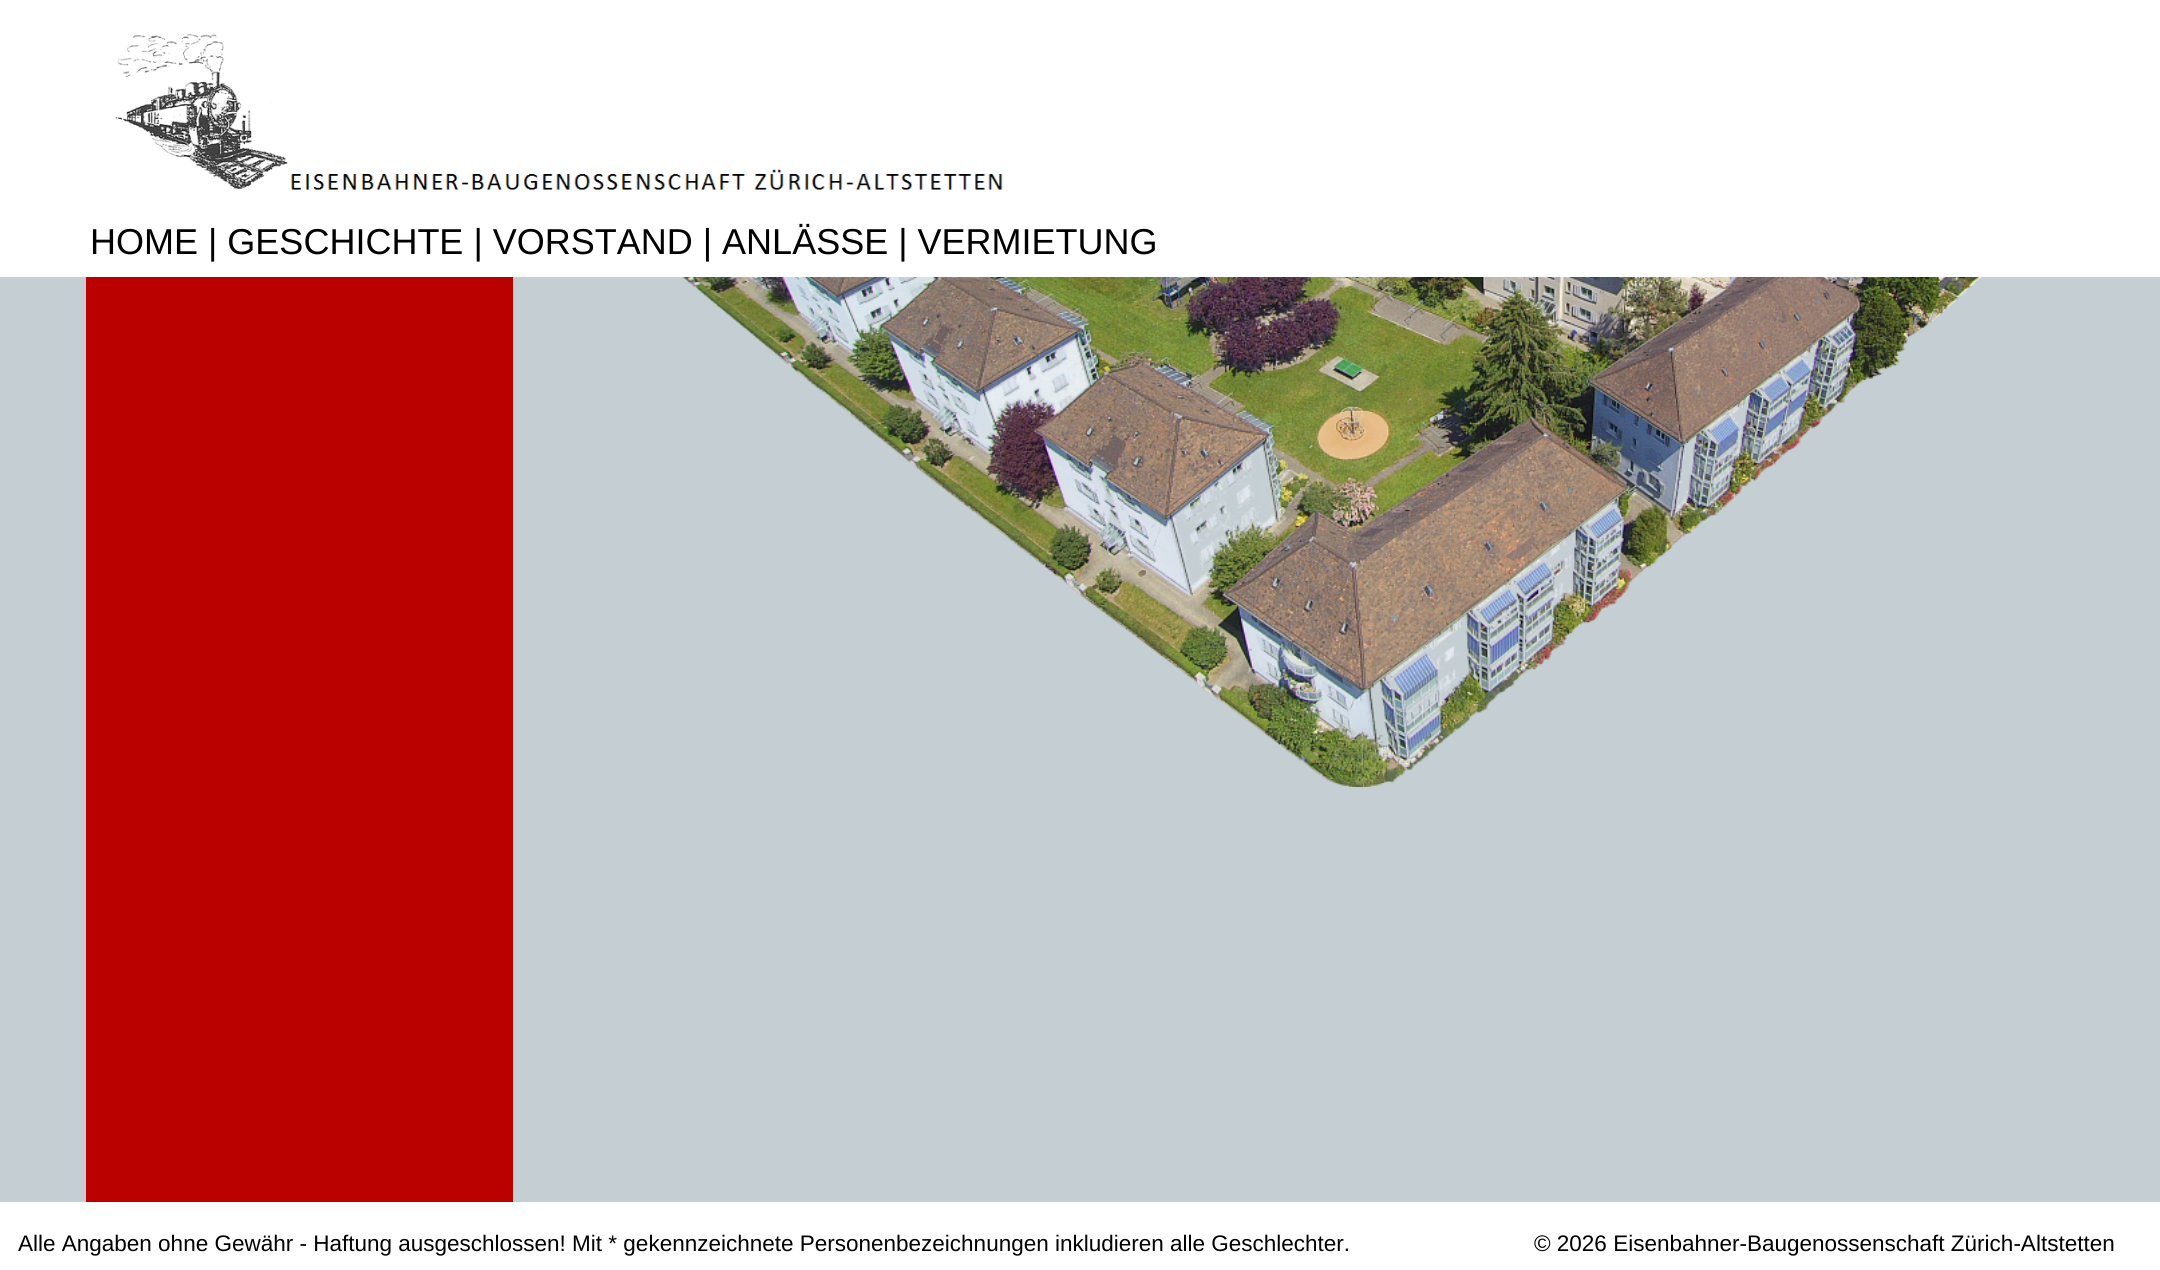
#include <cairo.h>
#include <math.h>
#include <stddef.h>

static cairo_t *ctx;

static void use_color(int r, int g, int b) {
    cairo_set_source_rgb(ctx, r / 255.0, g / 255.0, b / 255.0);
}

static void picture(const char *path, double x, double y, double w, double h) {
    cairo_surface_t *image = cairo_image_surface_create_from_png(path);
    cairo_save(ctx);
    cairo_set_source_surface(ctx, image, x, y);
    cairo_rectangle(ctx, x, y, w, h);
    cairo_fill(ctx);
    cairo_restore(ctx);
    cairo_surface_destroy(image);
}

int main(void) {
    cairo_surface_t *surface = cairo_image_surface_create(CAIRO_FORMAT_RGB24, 2160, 1270);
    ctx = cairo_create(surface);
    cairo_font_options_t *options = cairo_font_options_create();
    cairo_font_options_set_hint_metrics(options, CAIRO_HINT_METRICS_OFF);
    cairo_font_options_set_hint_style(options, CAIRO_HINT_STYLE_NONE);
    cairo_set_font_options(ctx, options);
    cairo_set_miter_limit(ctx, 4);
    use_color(196, 206, 211);
    cairo_paint(ctx);
    use_color(255, 255, 255);
    cairo_rectangle(ctx, 0, 0, 2160, 277);
    cairo_fill(ctx);
    picture("img1.png", 115, 34, 888, 156);
    cairo_select_font_face(ctx, "Liberation Sans", CAIRO_FONT_SLANT_NORMAL, CAIRO_FONT_WEIGHT_NORMAL);
    cairo_set_font_size(ctx, 36);
    use_color(0, 0, 0);
    cairo_move_to(ctx, 90, 254);
    cairo_show_text(ctx, "HOME | GESCHICHTE | VORSTAND | ANLÄSSE | VERMIETUNG");
    use_color(187, 0, 0);
    cairo_rectangle(ctx, 86, 277, 427, 925);
    cairo_fill(ctx);
    picture("img2.png", 682, 277, 1301, 510);
    use_color(255, 255, 255);
    cairo_rectangle(ctx, 0, 1202, 2160, 68);
    cairo_fill(ctx);
    cairo_set_font_size(ctx, 22.5);
    use_color(0, 0, 0);
    cairo_move_to(ctx, 18, 1251);
    cairo_show_text(ctx, "Alle Angaben ohne Gewähr - Haftung ausgeschlossen! Mit * gekennzeichnete Personenbezeichnungen inkludieren alle Geschlechter.");
    cairo_move_to(ctx, 1534, 1251);
    cairo_show_text(ctx, "© 2026 Eisenbahner-Baugenossenschaft Zürich-Altstetten");
    cairo_surface_write_to_png(surface, "result.png");
    cairo_font_options_destroy(options);
    cairo_destroy(ctx);
    cairo_surface_destroy(surface);
    return 0;
}
